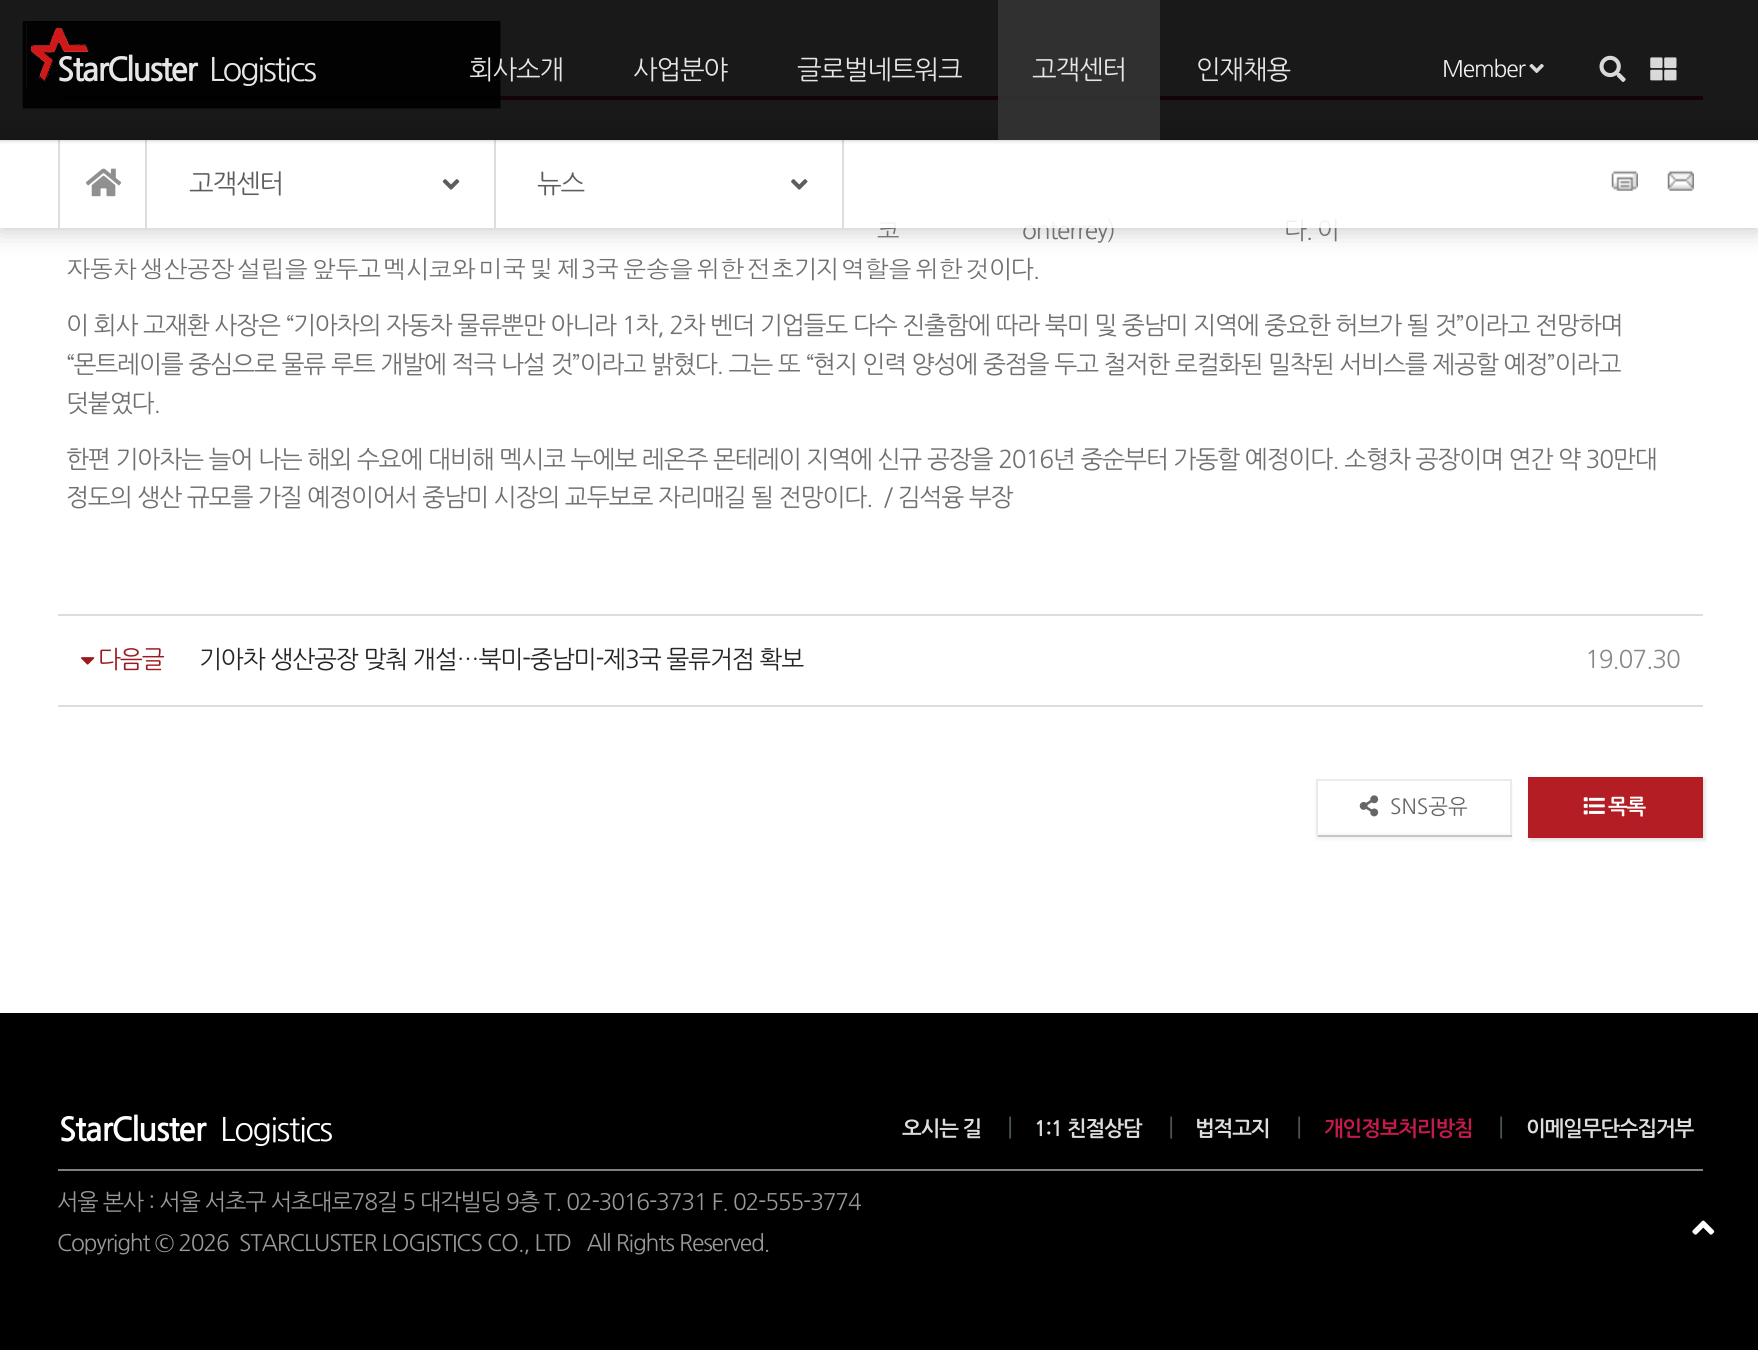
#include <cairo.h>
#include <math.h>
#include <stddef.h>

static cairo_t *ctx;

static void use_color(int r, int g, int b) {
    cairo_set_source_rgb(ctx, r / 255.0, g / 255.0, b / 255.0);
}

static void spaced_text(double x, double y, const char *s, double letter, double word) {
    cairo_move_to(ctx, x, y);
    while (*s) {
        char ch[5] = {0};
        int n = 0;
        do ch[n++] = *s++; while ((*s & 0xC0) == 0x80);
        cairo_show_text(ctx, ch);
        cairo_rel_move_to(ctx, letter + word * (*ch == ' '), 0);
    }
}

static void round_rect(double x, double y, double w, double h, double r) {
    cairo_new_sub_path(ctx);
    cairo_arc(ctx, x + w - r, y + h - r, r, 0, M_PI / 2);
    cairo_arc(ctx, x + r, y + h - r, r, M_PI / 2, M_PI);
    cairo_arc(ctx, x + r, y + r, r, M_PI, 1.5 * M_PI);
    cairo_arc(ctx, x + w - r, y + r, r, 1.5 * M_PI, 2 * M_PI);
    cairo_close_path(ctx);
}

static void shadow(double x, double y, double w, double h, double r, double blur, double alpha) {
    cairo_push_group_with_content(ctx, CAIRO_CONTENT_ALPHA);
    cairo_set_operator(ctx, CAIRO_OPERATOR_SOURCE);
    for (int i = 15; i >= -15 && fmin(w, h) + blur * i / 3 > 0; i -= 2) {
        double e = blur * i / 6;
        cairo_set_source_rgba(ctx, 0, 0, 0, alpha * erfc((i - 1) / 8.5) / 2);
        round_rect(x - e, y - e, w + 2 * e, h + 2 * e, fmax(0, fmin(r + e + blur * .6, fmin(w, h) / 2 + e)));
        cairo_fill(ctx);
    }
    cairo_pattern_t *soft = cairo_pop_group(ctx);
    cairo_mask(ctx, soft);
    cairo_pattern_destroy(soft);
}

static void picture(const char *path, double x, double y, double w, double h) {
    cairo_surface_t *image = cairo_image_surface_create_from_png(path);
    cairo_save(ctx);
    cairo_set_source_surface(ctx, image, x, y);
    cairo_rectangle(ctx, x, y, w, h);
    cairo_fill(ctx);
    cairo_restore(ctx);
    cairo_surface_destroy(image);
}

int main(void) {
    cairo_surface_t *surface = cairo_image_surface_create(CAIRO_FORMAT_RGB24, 1758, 1350);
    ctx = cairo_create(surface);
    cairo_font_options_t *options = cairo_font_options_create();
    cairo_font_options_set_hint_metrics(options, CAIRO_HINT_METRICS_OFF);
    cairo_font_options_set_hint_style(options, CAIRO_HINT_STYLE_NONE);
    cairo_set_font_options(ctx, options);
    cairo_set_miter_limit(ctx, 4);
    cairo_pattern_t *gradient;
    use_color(255, 255, 255);
    cairo_paint(ctx);
    cairo_save(ctx);
    cairo_set_fill_rule(ctx, CAIRO_FILL_RULE_EVEN_ODD);
    cairo_new_path(ctx);
    cairo_move_to(ctx, 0, 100);
    cairo_line_to(ctx, 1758, 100);
    cairo_line_to(ctx, 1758, 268);
    cairo_line_to(ctx, 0, 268);
    cairo_close_path(ctx);
    cairo_move_to(ctx, 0, 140);
    cairo_line_to(ctx, 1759, 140);
    cairo_line_to(ctx, 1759, 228);
    cairo_line_to(ctx, 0, 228);
    cairo_close_path(ctx);
    cairo_clip(ctx);
    use_color(192, 192, 192);
    shadow(0, 140, 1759, 88, 0, 13, 1);
    cairo_restore(ctx);
    cairo_select_font_face(ctx, "Dotum", CAIRO_FONT_SLANT_NORMAL, CAIRO_FONT_WEIGHT_NORMAL);
    cairo_set_font_size(ctx, 24.5);
    use_color(112, 112, 112);
    spaced_text(876, 239, "코", -1.17, 0);
    cairo_select_font_face(ctx, "NanumGothic", CAIRO_FONT_SLANT_NORMAL, CAIRO_FONT_WEIGHT_NORMAL);
    spaced_text(1022, 239, "onterrey)", -1.17, 0);
    spaced_text(1284, 239, "다. 이", -1.17, -1);
    cairo_set_source_rgba(ctx, 1, 1, 1, 0.9);
    cairo_rectangle(ctx, 0, 218, 1758, 10);
    cairo_fill(ctx);
    use_color(221, 221, 221);
    cairo_rectangle(ctx, 145, 140, 2, 88);
    cairo_fill(ctx);
    cairo_rectangle(ctx, 58, 140, 2, 88);
    cairo_fill(ctx);
    cairo_rectangle(ctx, 494, 140, 2, 88);
    cairo_fill(ctx);
    cairo_rectangle(ctx, 842, 140, 2, 88);
    cairo_fill(ctx);
    use_color(196, 27, 76);
    cairo_rectangle(ctx, 58, 96, 1645, 4);
    cairo_fill(ctx);
    cairo_save(ctx);
    cairo_rectangle(ctx, 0, 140, 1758, 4);
    cairo_clip(ctx);
    use_color(0, 0, 0);
    shadow(0, 0, 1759, 140, 0, 2.5, 0.27);
    cairo_restore(ctx);
    cairo_set_source_rgba(ctx, 0, 0, 0, 0.9);
    cairo_rectangle(ctx, 0, 0, 1758, 140);
    cairo_fill(ctx);
    picture("img1.png", 22, 21, 479, 88);
    cairo_select_font_face(ctx, "NanumGothic", CAIRO_FONT_SLANT_NORMAL, CAIRO_FONT_WEIGHT_BOLD);
    cairo_set_font_size(ctx, 32.5);
    use_color(230, 230, 230);
    spaced_text(57, 81, "StarCluster", -2.25, 0);
    cairo_select_font_face(ctx, "NanumGothic", CAIRO_FONT_SLANT_NORMAL, CAIRO_FONT_WEIGHT_NORMAL);
    spaced_text(209, 81, "Logistics", -2.25, 0);
    cairo_set_font_size(ctx, 26.25);
    spaced_text(469, 79, "회사소개", -1.17, 0);
    spaced_text(633, 79, "사업분야", -1.17, 0);
    spaced_text(797, 79, "글로벌네트워크", -1.17, 0);
    cairo_set_source_rgba(ctx, 0.2, 0.2, 0.2, 0.9);
    cairo_rectangle(ctx, 998, 0, 162, 140);
    cairo_fill(ctx);
    use_color(230, 230, 230);
    spaced_text(1032, 79, "고객센터", -1.17, 0);
    spaced_text(1196, 79, "인재채용", -1.17, 0);
    cairo_set_font_size(ctx, 22.75);
    use_color(240, 240, 240);
    spaced_text(1442, 77, "Member", -1.17, 0);
    picture("img2.png", 1529, 63, 15, 10);
    picture("img3.png", 1599, 55, 27, 27);
    picture("img4.png", 1650, 57, 27, 24);
    picture("img5.png", 85, 168, 37, 29);
    cairo_set_font_size(ctx, 26.25);
    use_color(93, 93, 93);
    spaced_text(189, 193, "고객센터", -1.17, 0);
    picture("img6.png", 442, 179, 18, 11);
    spaced_text(537, 193, "뉴스", -1.17, 0);
    picture("img7.png", 791, 179, 17, 11);
    picture("img8.png", 1611, 170, 27, 21);
    picture("img9.png", 1667, 170, 27, 21);
    cairo_select_font_face(ctx, "Dotum", CAIRO_FONT_SLANT_NORMAL, CAIRO_FONT_WEIGHT_NORMAL);
    cairo_set_font_size(ctx, 24.5);
    use_color(112, 112, 112);
    spaced_text(66, 278, "자동차 생산공장 설립을 앞두", -1.17, -3);
    cairo_select_font_face(ctx, "NanumGothic", CAIRO_FONT_SLANT_NORMAL, CAIRO_FONT_WEIGHT_NORMAL);
    spaced_text(358, 278, "고", -1.17, 0);
    cairo_select_font_face(ctx, "Dotum", CAIRO_FONT_SLANT_NORMAL, CAIRO_FONT_WEIGHT_NORMAL);
    spaced_text(383, 278, "멕", -1.17, 0);
    cairo_select_font_face(ctx, "NanumGothic", CAIRO_FONT_SLANT_NORMAL, CAIRO_FONT_WEIGHT_NORMAL);
    spaced_text(406, 278, "시", -1.17, 0);
    cairo_select_font_face(ctx, "Dotum", CAIRO_FONT_SLANT_NORMAL, CAIRO_FONT_WEIGHT_NORMAL);
    spaced_text(428, 278, "코와 미국 및 제", -1.17, -3);
    cairo_select_font_face(ctx, "NanumGothic", CAIRO_FONT_SLANT_NORMAL, CAIRO_FONT_WEIGHT_NORMAL);
    spaced_text(581, 278, "3", -1.17, 0);
    cairo_select_font_face(ctx, "Dotum", CAIRO_FONT_SLANT_NORMAL, CAIRO_FONT_WEIGHT_NORMAL);
    spaced_text(595, 278, "국 운송을 위한 전초", -1.17, -3);
    cairo_select_font_face(ctx, "NanumGothic", CAIRO_FONT_SLANT_NORMAL, CAIRO_FONT_WEIGHT_NORMAL);
    spaced_text(794, 278, "기지", -1.17, 0);
    cairo_select_font_face(ctx, "Dotum", CAIRO_FONT_SLANT_NORMAL, CAIRO_FONT_WEIGHT_NORMAL);
    spaced_text(841, 278, "역할을 위한 것", -1.17, -3);
    cairo_select_font_face(ctx, "NanumGothic", CAIRO_FONT_SLANT_NORMAL, CAIRO_FONT_WEIGHT_NORMAL);
    spaced_text(989, 278, "이다.", -1.17, 0);
    spaced_text(66, 334, "이 회사 고재환 사장은 “기아차의 자동차 물류뿐만 아니라 1차, 2차 벤더 기업들도 다수 진출함에 따라 북미 및 중남미 지역에 중요한 허브가 될 것”이라고 전망하며", -1.17, 0);
    spaced_text(66, 373, "“몬트레이를 중심으로 물류 루트 개발에 적극 나설 것”이라고 밝혔다. 그는 또 “현지 인력 양성에 중점을 두고 철저한 로컬화된 밀착된 서비스를 제공할 예정”이라고", -1.17, 0);
    spaced_text(66, 412, "덧붙였다.", -1.17, 0);
    spaced_text(66, 468, "한편 기아차는 늘어 나는 해외 수요에 대비해 멕시코 누에보 레온주 몬테레이 지역에 신규 공장을 2016년 중순부터 가동할 예정이다. 소형차 공장이며 연간 약 30만대", -1.17, 0);
    spaced_text(66, 506, "정도의 생산 규모를 가질 예정이어서 중남미 시장의 교두보로 자리매길 될 전망이다.  / 김석융 부장", -1.17, 0);
    use_color(221, 221, 221);
    cairo_rectangle(ctx, 58, 705, 1645, 2);
    cairo_fill(ctx);
    cairo_rectangle(ctx, 58, 614, 1645, 2);
    cairo_fill(ctx);
    picture("img10.png", 81, 657, 14, 8);
    use_color(155, 26, 32);
    spaced_text(98, 668, "다음글", -1.17, 0);
    use_color(37, 37, 37);
    spaced_text(199, 668, "기아차 생산공장 맞춰 개설…북미-중남미-제3국 물류거점 확보", -1.17, 0);
    use_color(136, 136, 136);
    spaced_text(1585, 668, "19.07.30", -1.17, 0);
    use_color(0, 0, 0);
    shadow(1316, 782, 196, 58, 0, 2, 0.04);
    gradient = cairo_pattern_create_linear(1414, 781, 1414, 835);
    cairo_pattern_add_color_stop_rgba(gradient, 0.95, 1, 1, 1, 1);
    cairo_pattern_add_color_stop_rgba(gradient, 1, 0.965, 0.965, 0.965, 1);
    cairo_set_source(ctx, gradient);
    cairo_pattern_destroy(gradient);
    cairo_rectangle(ctx, 1318, 781, 192, 54);
    cairo_fill(ctx);
    use_color(235, 235, 235);
    cairo_rectangle(ctx, 1316, 779, 196, 2);
    cairo_fill(ctx);
    cairo_rectangle(ctx, 1510, 779, 2, 58);
    cairo_fill(ctx);
    use_color(198, 198, 198);
    cairo_rectangle(ctx, 1316, 835, 196, 2);
    cairo_fill(ctx);
    use_color(235, 235, 235);
    cairo_rectangle(ctx, 1316, 779, 2, 58);
    cairo_fill(ctx);
    picture("img11.png", 1359, 795, 20, 22);
    cairo_select_font_face(ctx, "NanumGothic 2", CAIRO_FONT_SLANT_NORMAL, CAIRO_FONT_WEIGHT_NORMAL);
    cairo_set_font_size(ctx, 21);
    use_color(102, 102, 102);
    cairo_move_to(ctx, 1390, 814);
    cairo_show_text(ctx, "SNS공유");
    use_color(220, 220, 220);
    shadow(1530, 779, 175, 61, 0, 2, 1);
    use_color(180, 29, 36);
    cairo_rectangle(ctx, 1528, 777, 175, 61);
    cairo_fill(ctx);
    picture("img12.png", 1583, 797, 22, 18);
    cairo_select_font_face(ctx, "NanumGothic", CAIRO_FONT_SLANT_NORMAL, CAIRO_FONT_WEIGHT_BOLD);
    use_color(255, 255, 255);
    spaced_text(1608, 814, "목록", -1.17, 0);
    use_color(0, 0, 0);
    cairo_rectangle(ctx, 0, 1013, 1758, 337);
    cairo_fill(ctx);
    use_color(128, 128, 128);
    cairo_rectangle(ctx, 58, 1169, 1645, 2);
    cairo_fill(ctx);
    cairo_set_font_size(ctx, 32.5);
    use_color(255, 255, 255);
    spaced_text(59, 1141, "StarCluster", -1.6, 0);
    cairo_select_font_face(ctx, "NanumGothic", CAIRO_FONT_SLANT_NORMAL, CAIRO_FONT_WEIGHT_NORMAL);
    spaced_text(220, 1141, "Logistics", -1.6, 0);
    cairo_select_font_face(ctx, "NanumGothic", CAIRO_FONT_SLANT_NORMAL, CAIRO_FONT_WEIGHT_BOLD);
    cairo_set_font_size(ctx, 21);
    use_color(221, 221, 221);
    spaced_text(902, 1136, "오시는 길", -1.17, 0);
    cairo_select_font_face(ctx, "NanumGothic", CAIRO_FONT_SLANT_NORMAL, CAIRO_FONT_WEIGHT_NORMAL);
    cairo_set_font_size(ctx, 24.5);
    use_color(77, 85, 89);
    spaced_text(1007, 1136, "|", -1.17, 0);
    cairo_select_font_face(ctx, "NanumGothic", CAIRO_FONT_SLANT_NORMAL, CAIRO_FONT_WEIGHT_BOLD);
    cairo_set_font_size(ctx, 21);
    use_color(221, 221, 221);
    spaced_text(1034, 1136, "1:1 친절상담", -1.17, 0);
    cairo_select_font_face(ctx, "NanumGothic", CAIRO_FONT_SLANT_NORMAL, CAIRO_FONT_WEIGHT_NORMAL);
    cairo_set_font_size(ctx, 24.5);
    use_color(77, 85, 89);
    spaced_text(1168, 1136, "|", -1.17, 0);
    cairo_select_font_face(ctx, "NanumGothic", CAIRO_FONT_SLANT_NORMAL, CAIRO_FONT_WEIGHT_BOLD);
    cairo_set_font_size(ctx, 21);
    use_color(221, 221, 221);
    spaced_text(1195, 1136, "법적고지", -1.17, 0);
    cairo_select_font_face(ctx, "NanumGothic", CAIRO_FONT_SLANT_NORMAL, CAIRO_FONT_WEIGHT_NORMAL);
    cairo_set_font_size(ctx, 24.5);
    use_color(77, 85, 89);
    spaced_text(1296, 1136, "|", -1.17, 0);
    cairo_select_font_face(ctx, "NanumGothic", CAIRO_FONT_SLANT_NORMAL, CAIRO_FONT_WEIGHT_BOLD);
    cairo_set_font_size(ctx, 21);
    use_color(196, 27, 76);
    spaced_text(1324, 1136, "개인정보처리방침", -1.17, 0);
    cairo_select_font_face(ctx, "NanumGothic", CAIRO_FONT_SLANT_NORMAL, CAIRO_FONT_WEIGHT_NORMAL);
    cairo_set_font_size(ctx, 24.5);
    use_color(77, 85, 89);
    spaced_text(1498, 1136, "|", -1.17, 0);
    cairo_select_font_face(ctx, "NanumGothic", CAIRO_FONT_SLANT_NORMAL, CAIRO_FONT_WEIGHT_BOLD);
    cairo_set_font_size(ctx, 21);
    use_color(221, 221, 221);
    spaced_text(1526, 1136, "이메일무단수집거부", -1.17, 0);
    cairo_select_font_face(ctx, "NanumGothic", CAIRO_FONT_SLANT_NORMAL, CAIRO_FONT_WEIGHT_NORMAL);
    cairo_set_font_size(ctx, 22.75);
    use_color(153, 153, 153);
    spaced_text(57, 1210, "서울 본사 : 서울 서초구 서초대로78길 5 대각빌딩 9층 T. 02-3016-3731 F. 02-555-3774", -1.17, 0);
    spaced_text(57, 1251, "Copyright © 2026", -1.17, 0);
    spaced_text(239, 1251, "STARCLUSTER LOGISTICS CO., LTD   All Rights Reserved.", -1.17, 0);
    picture("img13.png", 1692, 1220, 23, 15);
    cairo_surface_write_to_png(surface, "result.png");
    cairo_font_options_destroy(options);
    cairo_destroy(ctx);
    cairo_surface_destroy(surface);
    return 0;
}
